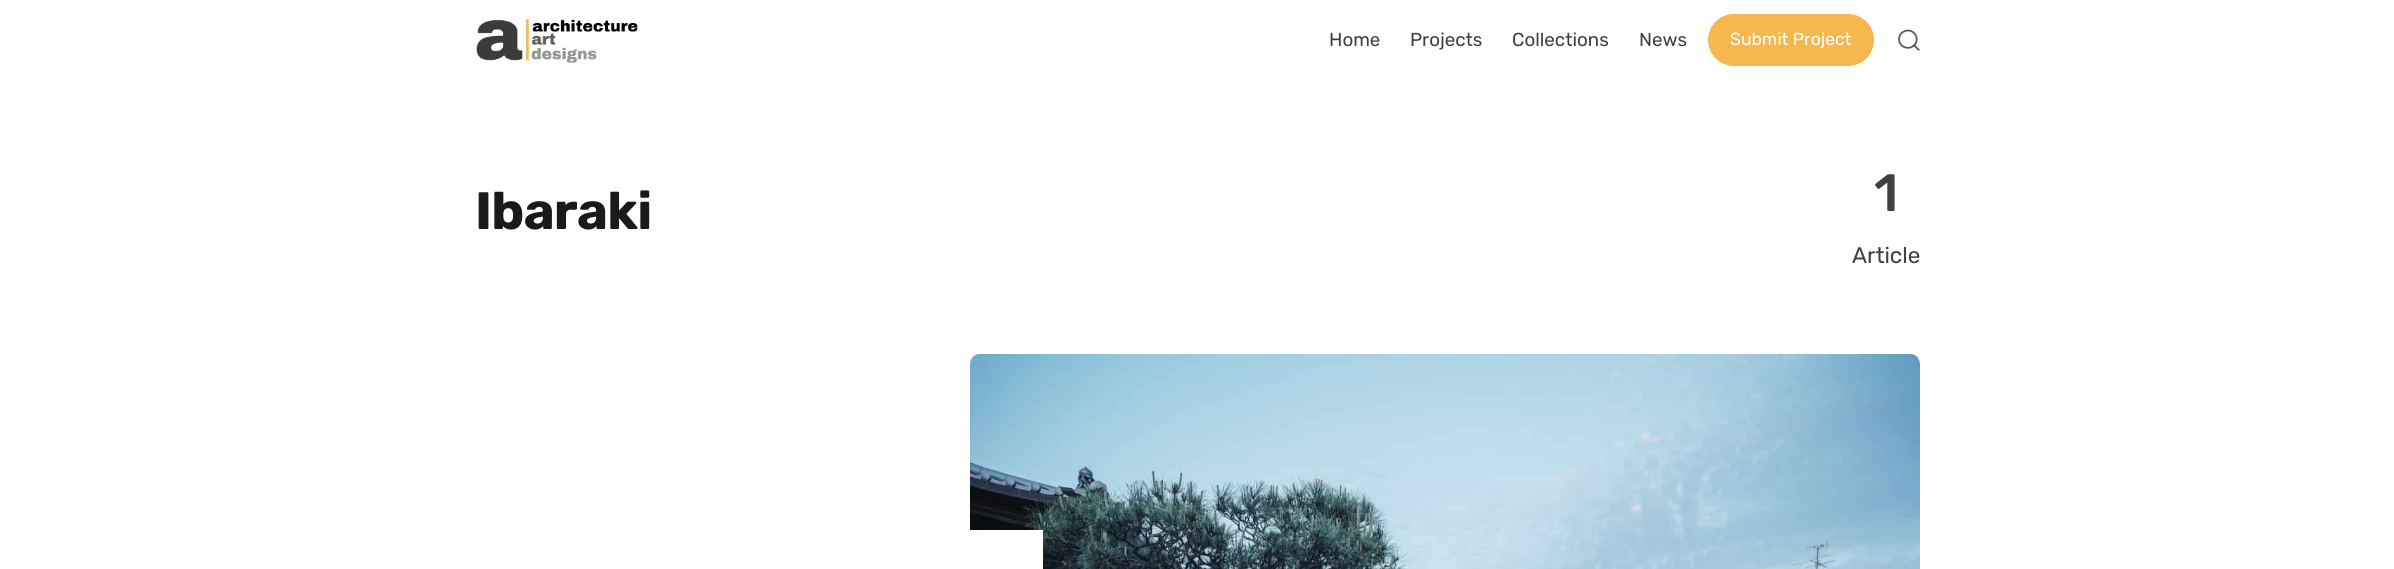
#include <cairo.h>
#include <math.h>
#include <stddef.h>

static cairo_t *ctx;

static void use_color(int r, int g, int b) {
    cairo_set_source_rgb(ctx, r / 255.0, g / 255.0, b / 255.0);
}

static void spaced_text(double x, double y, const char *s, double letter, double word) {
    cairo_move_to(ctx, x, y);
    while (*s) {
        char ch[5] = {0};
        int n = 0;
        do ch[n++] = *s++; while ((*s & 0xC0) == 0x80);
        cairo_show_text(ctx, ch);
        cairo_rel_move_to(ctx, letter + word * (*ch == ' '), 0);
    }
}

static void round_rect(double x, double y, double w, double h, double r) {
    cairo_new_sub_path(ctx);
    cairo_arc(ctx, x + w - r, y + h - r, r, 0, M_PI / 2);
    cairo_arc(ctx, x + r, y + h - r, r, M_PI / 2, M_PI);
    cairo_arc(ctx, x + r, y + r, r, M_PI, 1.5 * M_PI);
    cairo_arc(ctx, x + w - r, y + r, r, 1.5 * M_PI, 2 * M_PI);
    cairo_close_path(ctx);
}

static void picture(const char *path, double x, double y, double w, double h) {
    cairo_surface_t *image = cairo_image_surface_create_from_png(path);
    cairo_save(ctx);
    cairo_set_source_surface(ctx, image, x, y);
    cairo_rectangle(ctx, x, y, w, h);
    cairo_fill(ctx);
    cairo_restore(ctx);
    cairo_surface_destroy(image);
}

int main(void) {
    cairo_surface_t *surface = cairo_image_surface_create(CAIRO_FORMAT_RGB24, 2394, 569);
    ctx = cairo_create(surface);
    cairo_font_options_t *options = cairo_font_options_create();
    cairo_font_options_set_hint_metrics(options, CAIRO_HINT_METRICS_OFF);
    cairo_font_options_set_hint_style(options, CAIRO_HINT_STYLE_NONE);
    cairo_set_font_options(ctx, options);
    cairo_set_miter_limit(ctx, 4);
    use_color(255, 255, 255);
    cairo_paint(ctx);
    picture("img1.png", 476, 19, 162, 44);
    cairo_select_font_face(ctx, "Rubik", CAIRO_FONT_SLANT_NORMAL, CAIRO_FONT_WEIGHT_NORMAL);
    cairo_set_font_size(ctx, 18.75);
    use_color(64, 64, 64);
    cairo_move_to(ctx, 1329, 46);
    cairo_show_text(ctx, "Home");
    cairo_move_to(ctx, 1410, 46);
    cairo_show_text(ctx, "Projects");
    cairo_move_to(ctx, 1512, 46);
    cairo_show_text(ctx, "Collections");
    cairo_move_to(ctx, 1639, 46);
    cairo_show_text(ctx, "News");
    use_color(245, 183, 78);
    round_rect(1709.5, 15.5, 163, 49, 24.5);
    cairo_fill_preserve(ctx);
    cairo_set_line_width(ctx, 3);
    cairo_stroke(ctx);
    cairo_set_font_size(ctx, 17.5);
    use_color(255, 255, 255);
    cairo_move_to(ctx, 1730, 45);
    cairo_show_text(ctx, "Submit Project");
    picture("img2.png", 1898, 29, 22, 22);
    cairo_select_font_face(ctx, "Rubik", CAIRO_FONT_SLANT_NORMAL, CAIRO_FONT_WEIGHT_BOLD);
    cairo_set_font_size(ctx, 52.5);
    use_color(26, 26, 26);
    spaced_text(475, 229, "Ibaraki", -0.75, 0);
    cairo_select_font_face(ctx, "Rubik Medium", CAIRO_FONT_SLANT_NORMAL, CAIRO_FONT_WEIGHT_NORMAL);
    use_color(64, 64, 64);
    cairo_move_to(ctx, 1874, 211);
    cairo_show_text(ctx, "1");
    cairo_select_font_face(ctx, "Rubik", CAIRO_FONT_SLANT_NORMAL, CAIRO_FONT_WEIGHT_NORMAL);
    cairo_set_font_size(ctx, 22.5);
    cairo_move_to(ctx, 1852, 263);
    cairo_show_text(ctx, "Article");
    picture("img3.png", 970, 354, 950, 215);
    use_color(255, 255, 255);
    cairo_new_path(ctx);
    cairo_move_to(ctx, 485, 530);
    cairo_line_to(ctx, 485, 535);
    cairo_line_to(ctx, 1032, 535);
    cairo_line_to(ctx, 1032, 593);
    cairo_line_to(ctx, 1043, 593);
    cairo_line_to(ctx, 1043, 530);
    cairo_close_path(ctx);
    cairo_fill(ctx);
    cairo_rectangle(ctx, 970, 535, 62, 34);
    cairo_fill(ctx);
    cairo_surface_write_to_png(surface, "result.png");
    cairo_font_options_destroy(options);
    cairo_destroy(ctx);
    cairo_surface_destroy(surface);
    return 0;
}
